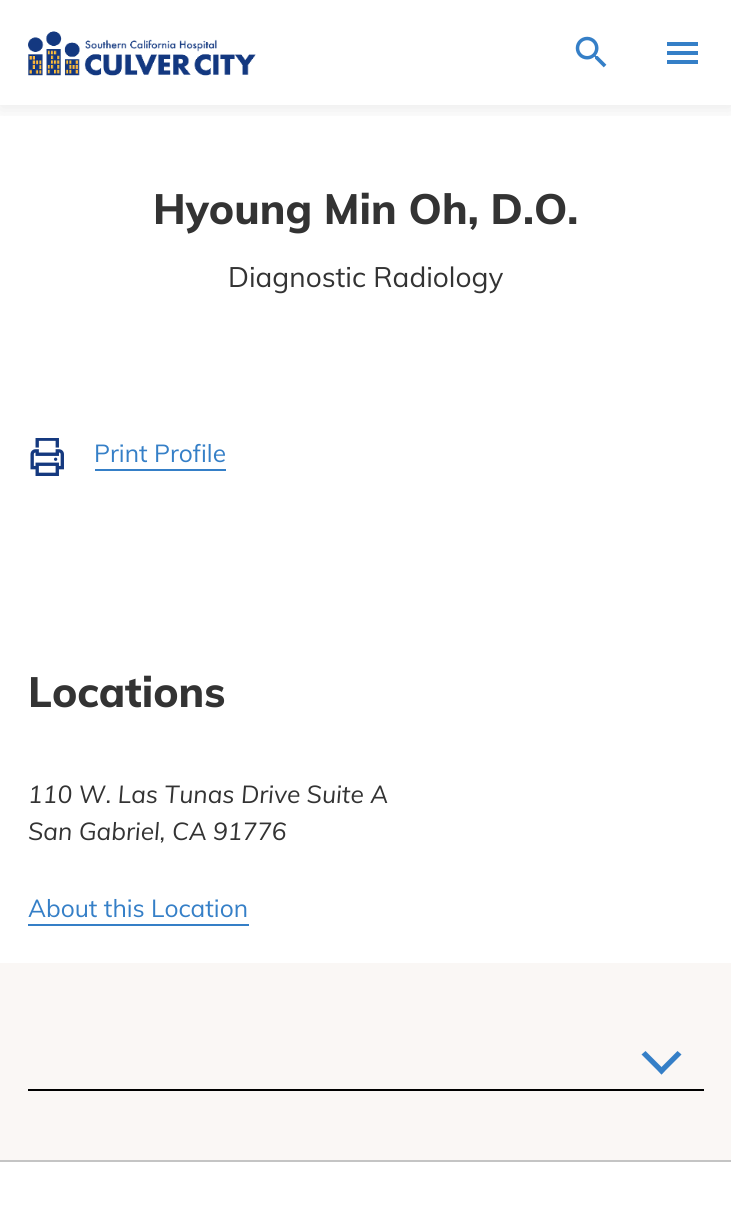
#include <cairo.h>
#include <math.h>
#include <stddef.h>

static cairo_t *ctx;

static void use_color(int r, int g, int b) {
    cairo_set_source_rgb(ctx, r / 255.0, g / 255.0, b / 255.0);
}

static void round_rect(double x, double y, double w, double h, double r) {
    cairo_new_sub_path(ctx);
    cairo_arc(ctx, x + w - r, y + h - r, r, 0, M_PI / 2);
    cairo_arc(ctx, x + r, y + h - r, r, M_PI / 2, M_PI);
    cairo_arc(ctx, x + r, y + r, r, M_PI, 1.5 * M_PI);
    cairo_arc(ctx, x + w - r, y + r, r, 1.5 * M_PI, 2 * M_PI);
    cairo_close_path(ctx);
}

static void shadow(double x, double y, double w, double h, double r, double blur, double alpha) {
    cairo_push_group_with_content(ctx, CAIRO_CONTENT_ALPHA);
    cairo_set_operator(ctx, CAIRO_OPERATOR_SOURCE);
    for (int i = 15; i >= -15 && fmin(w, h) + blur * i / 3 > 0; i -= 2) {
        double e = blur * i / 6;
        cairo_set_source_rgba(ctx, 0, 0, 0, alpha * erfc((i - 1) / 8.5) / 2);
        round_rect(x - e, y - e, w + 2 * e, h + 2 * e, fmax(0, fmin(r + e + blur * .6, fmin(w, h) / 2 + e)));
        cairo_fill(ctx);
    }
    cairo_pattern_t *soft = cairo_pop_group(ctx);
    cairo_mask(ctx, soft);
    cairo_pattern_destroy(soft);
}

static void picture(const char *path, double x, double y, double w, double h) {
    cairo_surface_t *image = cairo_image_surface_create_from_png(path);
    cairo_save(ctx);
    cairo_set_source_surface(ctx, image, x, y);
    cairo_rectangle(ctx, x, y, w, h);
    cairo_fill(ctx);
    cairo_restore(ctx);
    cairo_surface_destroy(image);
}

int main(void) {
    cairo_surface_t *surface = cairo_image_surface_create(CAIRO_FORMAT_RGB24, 731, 1211);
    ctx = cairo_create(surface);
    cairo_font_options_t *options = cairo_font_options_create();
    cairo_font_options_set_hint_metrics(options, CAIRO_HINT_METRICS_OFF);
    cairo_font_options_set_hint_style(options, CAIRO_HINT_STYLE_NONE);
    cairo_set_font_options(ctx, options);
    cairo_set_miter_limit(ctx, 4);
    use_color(255, 255, 255);
    cairo_paint(ctx);
    cairo_save(ctx);
    cairo_rectangle(ctx, 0, 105, 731, 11);
    cairo_clip(ctx);
    use_color(0, 0, 0);
    shadow(0, 2, 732, 105, 0, 10.5, 0.1);
    cairo_restore(ctx);
    picture("img1.png", 28, 31, 228, 45);
    picture("img2.png", 575, 36, 32, 32);
    use_color(53, 127, 199);
    cairo_rectangle(ctx, 667, 51, 31, 4);
    cairo_fill(ctx);
    cairo_rectangle(ctx, 667, 42, 31, 4);
    cairo_fill(ctx);
    cairo_rectangle(ctx, 667, 60, 31, 4);
    cairo_fill(ctx);
    use_color(250, 247, 245);
    cairo_rectangle(ctx, 0, 963, 731, 197);
    cairo_fill(ctx);
    cairo_select_font_face(ctx, "Muli ExtraBold", CAIRO_FONT_SLANT_NORMAL, CAIRO_FONT_WEIGHT_NORMAL);
    cairo_set_font_size(ctx, 42);
    use_color(51, 51, 51);
    cairo_move_to(ctx, 153, 224);
    cairo_show_text(ctx, "Hyoung Min Oh, D.O.");
    cairo_select_font_face(ctx, "Muli", CAIRO_FONT_SLANT_NORMAL, CAIRO_FONT_WEIGHT_NORMAL);
    cairo_set_font_size(ctx, 28);
    cairo_move_to(ctx, 228, 287);
    cairo_show_text(ctx, "Diagnostic Radiology");
    picture("img3.png", 30, 438, 34, 38);
    cairo_set_font_size(ctx, 24.5);
    use_color(53, 127, 199);
    cairo_move_to(ctx, 94, 462);
    cairo_show_text(ctx, "Print Profile");
    cairo_rectangle(ctx, 95, 469, 131, 2);
    cairo_fill(ctx);
    cairo_select_font_face(ctx, "Muli ExtraBold", CAIRO_FONT_SLANT_NORMAL, CAIRO_FONT_WEIGHT_NORMAL);
    cairo_set_font_size(ctx, 42);
    use_color(51, 51, 51);
    cairo_move_to(ctx, 28, 707);
    cairo_show_text(ctx, "Locations");
    cairo_select_font_face(ctx, "Muli", CAIRO_FONT_SLANT_ITALIC, CAIRO_FONT_WEIGHT_NORMAL);
    cairo_set_font_size(ctx, 24.5);
    cairo_move_to(ctx, 28, 803);
    cairo_show_text(ctx, "110 W. Las Tunas Drive Suite A");
    cairo_move_to(ctx, 28, 840);
    cairo_show_text(ctx, "San Gabriel, CA 91776");
    cairo_select_font_face(ctx, "Muli", CAIRO_FONT_SLANT_NORMAL, CAIRO_FONT_WEIGHT_NORMAL);
    use_color(53, 127, 199);
    cairo_move_to(ctx, 28, 917);
    cairo_show_text(ctx, "About this Location");
    cairo_rectangle(ctx, 28, 924, 221, 2);
    cairo_fill(ctx);
    use_color(0, 0, 0);
    cairo_rectangle(ctx, 28, 1089, 676, 2);
    cairo_fill(ctx);
    use_color(53, 127, 199);
    cairo_new_path(ctx);
    cairo_move_to(ctx, 677.5, 1051);
    cairo_line_to(ctx, 681.5, 1054.5);
    cairo_line_to(ctx, 661.5, 1074.5);
    cairo_line_to(ctx, 658, 1070.5);
    cairo_close_path(ctx);
    cairo_fill(ctx);
    cairo_new_path(ctx);
    cairo_move_to(ctx, 645.5, 1051);
    cairo_line_to(ctx, 665, 1070.5);
    cairo_line_to(ctx, 661.5, 1074.5);
    cairo_line_to(ctx, 641.5, 1054.5);
    cairo_close_path(ctx);
    cairo_fill(ctx);
    use_color(196, 196, 196);
    cairo_rectangle(ctx, 0, 1160, 731, 2);
    cairo_fill(ctx);
    cairo_surface_write_to_png(surface, "result.png");
    cairo_font_options_destroy(options);
    cairo_destroy(ctx);
    cairo_surface_destroy(surface);
    return 0;
}
